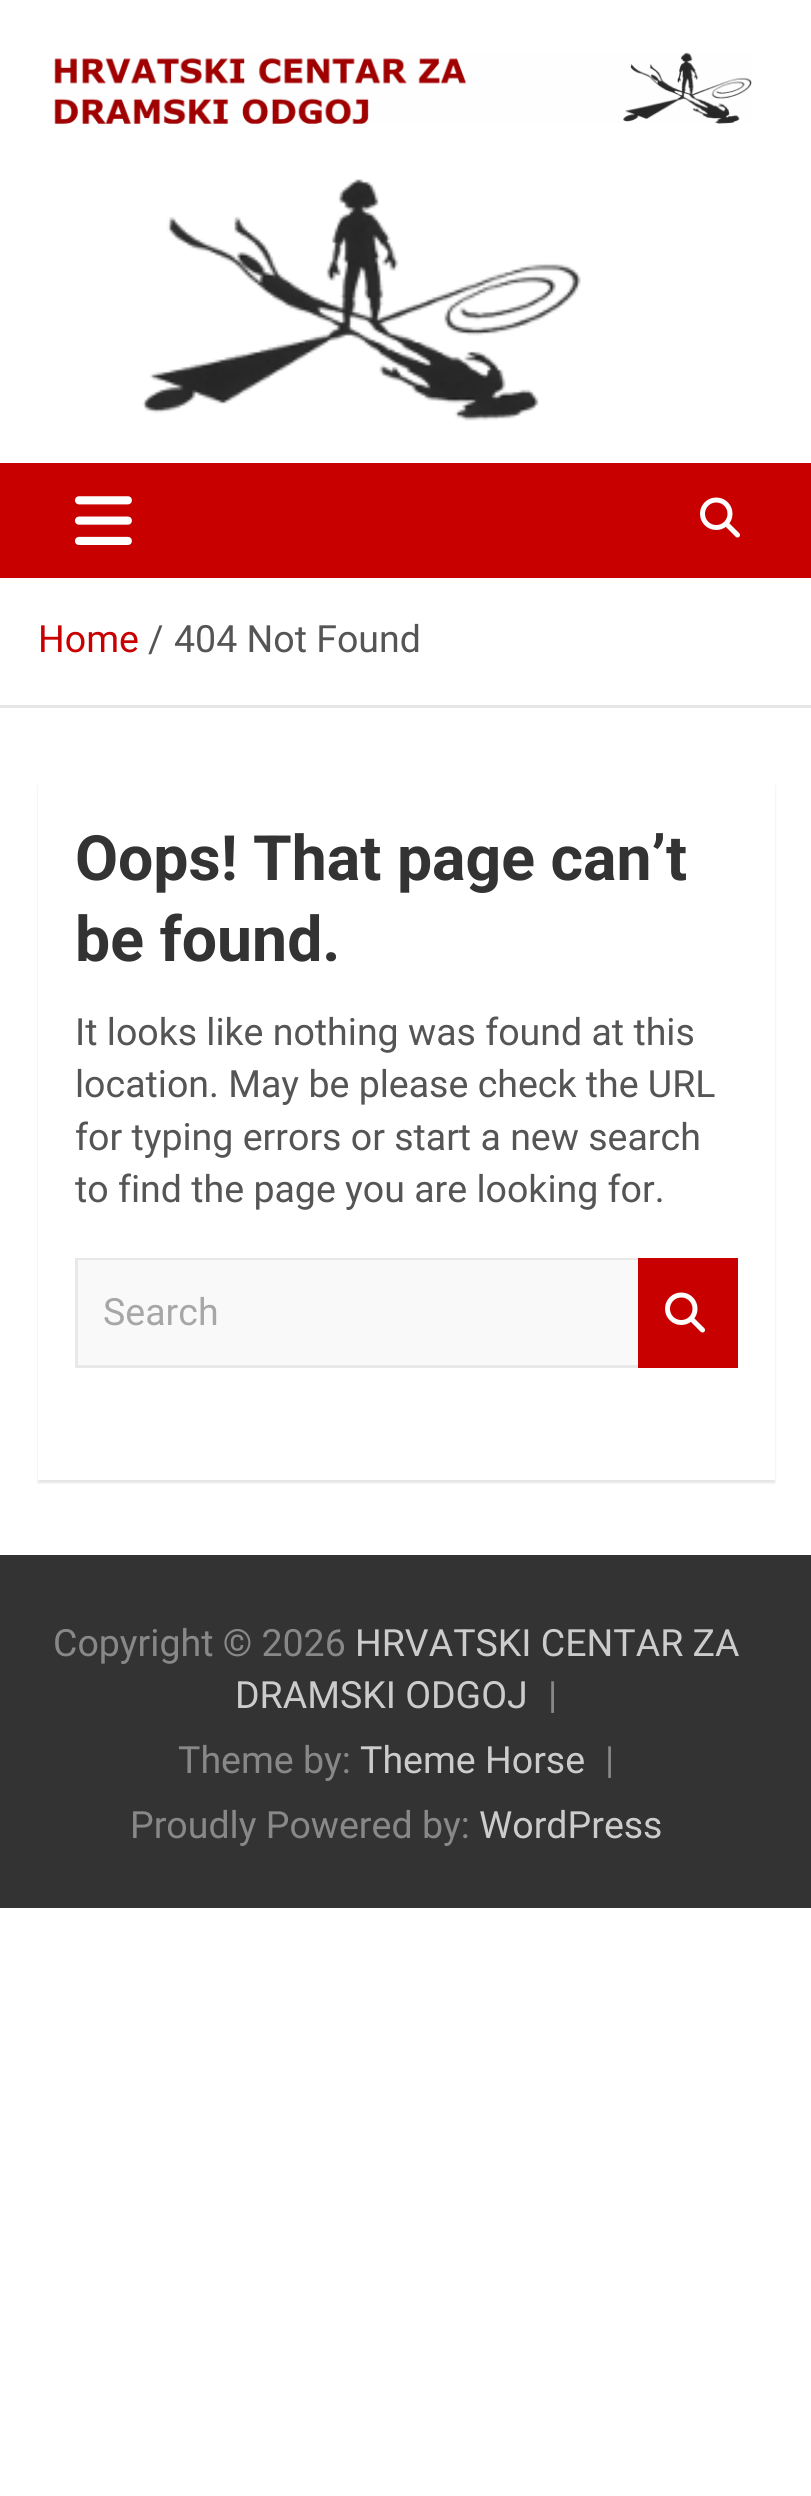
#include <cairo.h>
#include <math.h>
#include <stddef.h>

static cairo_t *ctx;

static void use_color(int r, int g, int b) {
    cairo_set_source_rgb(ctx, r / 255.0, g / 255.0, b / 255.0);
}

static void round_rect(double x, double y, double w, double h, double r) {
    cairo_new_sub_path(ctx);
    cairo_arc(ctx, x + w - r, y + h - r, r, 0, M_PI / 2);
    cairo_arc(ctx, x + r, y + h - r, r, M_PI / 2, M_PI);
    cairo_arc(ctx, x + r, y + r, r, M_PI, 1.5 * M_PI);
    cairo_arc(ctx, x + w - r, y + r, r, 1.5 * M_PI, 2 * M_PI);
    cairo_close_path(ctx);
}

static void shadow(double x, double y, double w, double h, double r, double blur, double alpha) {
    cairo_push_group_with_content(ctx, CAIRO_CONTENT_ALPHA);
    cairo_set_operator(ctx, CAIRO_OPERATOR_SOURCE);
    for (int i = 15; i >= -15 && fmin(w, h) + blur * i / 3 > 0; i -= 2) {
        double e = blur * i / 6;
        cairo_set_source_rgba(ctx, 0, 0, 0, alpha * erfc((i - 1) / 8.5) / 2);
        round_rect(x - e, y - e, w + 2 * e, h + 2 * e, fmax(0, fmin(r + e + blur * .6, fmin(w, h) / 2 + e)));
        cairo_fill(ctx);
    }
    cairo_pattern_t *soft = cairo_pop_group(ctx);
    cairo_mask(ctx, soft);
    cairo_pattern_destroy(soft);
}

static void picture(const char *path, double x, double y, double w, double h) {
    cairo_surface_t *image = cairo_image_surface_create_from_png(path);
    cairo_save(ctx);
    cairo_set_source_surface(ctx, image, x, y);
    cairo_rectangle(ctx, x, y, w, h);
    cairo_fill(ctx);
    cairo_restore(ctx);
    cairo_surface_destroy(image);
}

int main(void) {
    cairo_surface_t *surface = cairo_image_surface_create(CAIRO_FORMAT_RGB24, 811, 2496);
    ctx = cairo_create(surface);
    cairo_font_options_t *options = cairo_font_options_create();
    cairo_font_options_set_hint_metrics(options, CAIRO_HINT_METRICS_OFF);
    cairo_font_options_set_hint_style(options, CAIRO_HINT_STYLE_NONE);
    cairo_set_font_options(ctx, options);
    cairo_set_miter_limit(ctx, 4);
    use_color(255, 255, 255);
    cairo_paint(ctx);
    picture("img1.png", 54, 52, 698, 72);
    picture("img2.png", 142, 179, 439, 242);
    use_color(200, 0, 0);
    cairo_rectangle(ctx, 0, 463, 811, 115);
    cairo_fill(ctx);
    picture("img3.png", 75, 496, 57, 49);
    picture("img4.png", 700, 497, 40, 41);
    use_color(230, 230, 230);
    cairo_rectangle(ctx, 0, 705, 811, 3);
    cairo_fill(ctx);
    cairo_select_font_face(ctx, "Roboto", CAIRO_FONT_SLANT_NORMAL, CAIRO_FONT_WEIGHT_NORMAL);
    cairo_set_font_size(ctx, 37.5);
    use_color(200, 0, 0);
    cairo_move_to(ctx, 38, 652);
    cairo_show_text(ctx, "Home");
    use_color(85, 85, 85);
    cairo_move_to(ctx, 148, 652);
    cairo_show_text(ctx, "/");
    cairo_move_to(ctx, 174, 652);
    cairo_show_text(ctx, "404 Not Found");
    cairo_save(ctx);
    cairo_set_fill_rule(ctx, CAIRO_FILL_RULE_EVEN_ODD);
    cairo_new_path(ctx);
    cairo_move_to(ctx, 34, 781);
    cairo_line_to(ctx, 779, 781);
    cairo_line_to(ctx, 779, 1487);
    cairo_line_to(ctx, 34, 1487);
    cairo_close_path(ctx);
    cairo_move_to(ctx, 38, 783);
    cairo_line_to(ctx, 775, 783);
    cairo_line_to(ctx, 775, 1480);
    cairo_line_to(ctx, 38, 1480);
    cairo_close_path(ctx);
    cairo_clip(ctx);
    use_color(0, 0, 0);
    shadow(38, 785, 737, 698, 0, 1, 0.1);
    cairo_restore(ctx);
    cairo_select_font_face(ctx, "Roboto", CAIRO_FONT_SLANT_NORMAL, CAIRO_FONT_WEIGHT_BOLD);
    cairo_set_font_size(ctx, 62.5);
    use_color(51, 51, 51);
    cairo_move_to(ctx, 75, 880);
    cairo_show_text(ctx, "Oops! That page can’t");
    cairo_move_to(ctx, 75, 961);
    cairo_show_text(ctx, "be found.");
    cairo_select_font_face(ctx, "Roboto", CAIRO_FONT_SLANT_NORMAL, CAIRO_FONT_WEIGHT_NORMAL);
    cairo_set_font_size(ctx, 37.5);
    use_color(85, 85, 85);
    cairo_move_to(ctx, 75, 1045);
    cairo_show_text(ctx, "It looks like nothing was found at this");
    cairo_move_to(ctx, 75, 1097);
    cairo_show_text(ctx, "location. May be please check the URL");
    cairo_move_to(ctx, 75, 1150);
    cairo_show_text(ctx, "for typing errors or start a new search");
    cairo_move_to(ctx, 75, 1202);
    cairo_show_text(ctx, "to find the page you are looking for.");
    use_color(249, 249, 249);
    cairo_rectangle(ctx, 78, 1260, 560, 105);
    cairo_fill(ctx);
    use_color(232, 232, 232);
    cairo_new_path(ctx);
    cairo_move_to(ctx, 75, 1258);
    cairo_line_to(ctx, 638, 1258);
    cairo_line_to(ctx, 638, 1260);
    cairo_line_to(ctx, 78, 1260);
    cairo_close_path(ctx);
    cairo_fill(ctx);
    cairo_new_path(ctx);
    cairo_move_to(ctx, 638, 1368);
    cairo_line_to(ctx, 75, 1368);
    cairo_line_to(ctx, 78, 1365);
    cairo_line_to(ctx, 638, 1365);
    cairo_close_path(ctx);
    cairo_fill(ctx);
    cairo_set_source_rgba(ctx, 0, 0, 0, 0.09);
    cairo_new_path(ctx);
    cairo_move_to(ctx, 75, 1368);
    cairo_line_to(ctx, 75, 1258);
    cairo_line_to(ctx, 78, 1260);
    cairo_line_to(ctx, 78, 1365);
    cairo_close_path(ctx);
    cairo_fill(ctx);
    use_color(167, 167, 167);
    cairo_move_to(ctx, 103, 1325);
    cairo_show_text(ctx, "Search");
    use_color(200, 0, 0);
    cairo_rectangle(ctx, 638, 1258, 100, 110);
    cairo_fill(ctx);
    picture("img4.png", 665, 1292, 40, 41);
    use_color(51, 51, 51);
    cairo_rectangle(ctx, 0, 1555, 811, 353);
    cairo_fill(ctx);
    use_color(136, 136, 136);
    cairo_move_to(ctx, 53, 1656);
    cairo_show_text(ctx, "Copyright © 2026");
    use_color(204, 204, 204);
    cairo_move_to(ctx, 355, 1656);
    cairo_show_text(ctx, "HRVATSKI CENTAR ZA");
    cairo_move_to(ctx, 235, 1708);
    cairo_show_text(ctx, "DRAMSKI ODGOJ");
    use_color(136, 136, 136);
    cairo_move_to(ctx, 548, 1708);
    cairo_show_text(ctx, "|");
    cairo_move_to(ctx, 178, 1773);
    cairo_show_text(ctx, "Theme by:");
    use_color(204, 204, 204);
    cairo_move_to(ctx, 360, 1773);
    cairo_show_text(ctx, "Theme Horse");
    use_color(136, 136, 136);
    cairo_move_to(ctx, 605, 1773);
    cairo_show_text(ctx, "|");
    cairo_move_to(ctx, 130, 1838);
    cairo_show_text(ctx, "Proudly Powered by:");
    use_color(204, 204, 204);
    cairo_move_to(ctx, 479, 1838);
    cairo_show_text(ctx, "WordPress");
    cairo_surface_write_to_png(surface, "result.png");
    cairo_font_options_destroy(options);
    cairo_destroy(ctx);
    cairo_surface_destroy(surface);
    return 0;
}
